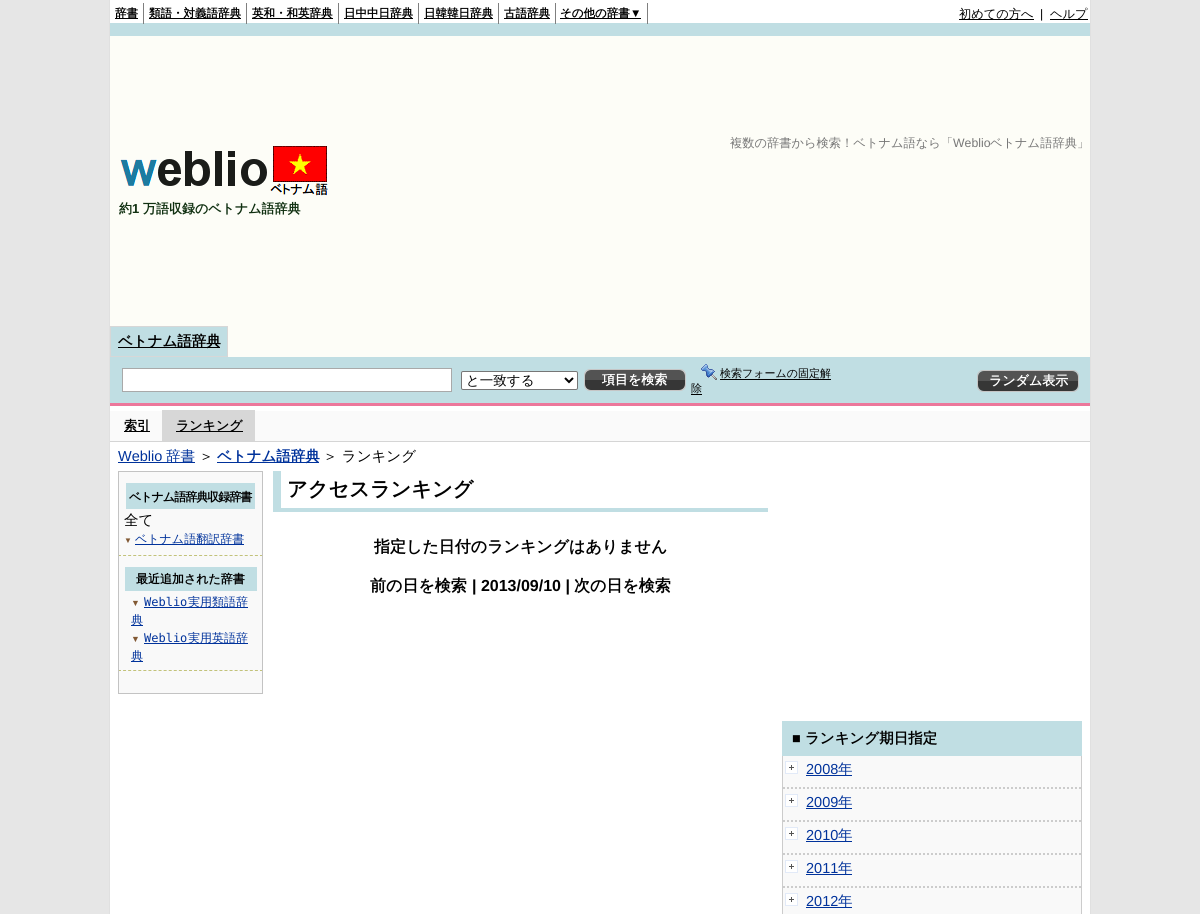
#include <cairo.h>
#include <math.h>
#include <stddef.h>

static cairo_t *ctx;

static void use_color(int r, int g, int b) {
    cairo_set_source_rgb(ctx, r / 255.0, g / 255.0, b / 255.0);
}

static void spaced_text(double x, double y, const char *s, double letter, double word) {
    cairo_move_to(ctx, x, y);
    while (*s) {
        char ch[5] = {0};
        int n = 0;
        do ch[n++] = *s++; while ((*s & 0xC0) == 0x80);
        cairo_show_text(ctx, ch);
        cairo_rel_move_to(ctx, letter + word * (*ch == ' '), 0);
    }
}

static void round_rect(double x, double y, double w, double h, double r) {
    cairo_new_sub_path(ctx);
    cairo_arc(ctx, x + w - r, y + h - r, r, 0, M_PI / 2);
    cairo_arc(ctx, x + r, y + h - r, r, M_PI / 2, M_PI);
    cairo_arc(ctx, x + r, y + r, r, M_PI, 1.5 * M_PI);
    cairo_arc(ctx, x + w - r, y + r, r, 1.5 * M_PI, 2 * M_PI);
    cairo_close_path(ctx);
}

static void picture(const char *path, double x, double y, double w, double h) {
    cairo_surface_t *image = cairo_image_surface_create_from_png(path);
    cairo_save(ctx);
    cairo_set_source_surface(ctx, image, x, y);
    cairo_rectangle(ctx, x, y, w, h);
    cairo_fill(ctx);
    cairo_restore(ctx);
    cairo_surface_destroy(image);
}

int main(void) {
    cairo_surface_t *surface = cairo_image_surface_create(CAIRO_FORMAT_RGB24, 1200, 914);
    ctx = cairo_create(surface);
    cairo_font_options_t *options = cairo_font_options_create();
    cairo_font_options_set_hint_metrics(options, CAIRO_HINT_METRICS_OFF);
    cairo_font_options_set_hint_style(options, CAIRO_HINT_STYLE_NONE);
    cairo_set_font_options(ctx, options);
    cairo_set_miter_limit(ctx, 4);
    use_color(230, 230, 230);
    cairo_paint(ctx);
    use_color(255, 255, 255);
    cairo_rectangle(ctx, 110, 0, 980, 914);
    cairo_fill(ctx);
    use_color(224, 224, 224);
    cairo_rectangle(ctx, 1090, 0, 1, 914);
    cairo_fill(ctx);
    cairo_rectangle(ctx, 109, 0, 1, 914);
    cairo_fill(ctx);
    use_color(192, 222, 227);
    cairo_rectangle(ctx, 110, 23, 980, 13);
    cairo_fill(ctx);
    use_color(127, 127, 127);
    cairo_rectangle(ctx, 143, 3, 1, 21);
    cairo_fill(ctx);
    use_color(0, 0, 0);
    cairo_rectangle(ctx, 115, 18, 23, 1);
    cairo_fill(ctx);
    cairo_select_font_face(ctx, "WenQuanYi Zen Hei", CAIRO_FONT_SLANT_NORMAL, CAIRO_FONT_WEIGHT_BOLD);
    cairo_set_font_size(ctx, 11.5);
    cairo_move_to(ctx, 115, 17);
    cairo_show_text(ctx, "辞書");
    use_color(127, 127, 127);
    cairo_rectangle(ctx, 246, 3, 1, 21);
    cairo_fill(ctx);
    use_color(0, 0, 0);
    cairo_rectangle(ctx, 149, 18, 92, 1);
    cairo_fill(ctx);
    cairo_move_to(ctx, 149, 17);
    cairo_show_text(ctx, "類語・対義語辞典");
    use_color(127, 127, 127);
    cairo_rectangle(ctx, 338, 3, 1, 21);
    cairo_fill(ctx);
    use_color(0, 0, 0);
    cairo_rectangle(ctx, 252, 18, 81, 1);
    cairo_fill(ctx);
    cairo_move_to(ctx, 252, 17);
    cairo_show_text(ctx, "英和・和英辞典");
    use_color(127, 127, 127);
    cairo_rectangle(ctx, 418, 3, 1, 21);
    cairo_fill(ctx);
    use_color(0, 0, 0);
    cairo_rectangle(ctx, 344, 18, 69, 1);
    cairo_fill(ctx);
    cairo_move_to(ctx, 344, 17);
    cairo_show_text(ctx, "日中中日辞典");
    use_color(127, 127, 127);
    cairo_rectangle(ctx, 498, 3, 1, 21);
    cairo_fill(ctx);
    use_color(0, 0, 0);
    cairo_rectangle(ctx, 424, 18, 69, 1);
    cairo_fill(ctx);
    cairo_move_to(ctx, 424, 17);
    cairo_show_text(ctx, "日韓韓日辞典");
    use_color(127, 127, 127);
    cairo_rectangle(ctx, 555, 3, 1, 21);
    cairo_fill(ctx);
    use_color(0, 0, 0);
    cairo_rectangle(ctx, 504, 18, 46, 1);
    cairo_fill(ctx);
    cairo_move_to(ctx, 504, 17);
    cairo_show_text(ctx, "古語辞典");
    use_color(127, 127, 127);
    cairo_rectangle(ctx, 647, 3, 1, 21);
    cairo_fill(ctx);
    use_color(0, 0, 0);
    cairo_rectangle(ctx, 560, 18, 81, 1);
    cairo_fill(ctx);
    cairo_move_to(ctx, 560, 17);
    cairo_show_text(ctx, "その他の辞書");
    cairo_select_font_face(ctx, "Liberation Sans", CAIRO_FONT_SLANT_NORMAL, CAIRO_FONT_WEIGHT_BOLD);
    cairo_move_to(ctx, 630, 17);
    cairo_show_text(ctx, "▼");
    cairo_rectangle(ctx, 959, 19, 75, 1);
    cairo_fill(ctx);
    cairo_select_font_face(ctx, "WenQuanYi Zen Hei Medium", CAIRO_FONT_SLANT_NORMAL, CAIRO_FONT_WEIGHT_NORMAL);
    cairo_set_font_size(ctx, 12.25);
    cairo_move_to(ctx, 959, 18);
    cairo_show_text(ctx, "初めての方へ");
    cairo_select_font_face(ctx, "Liberation Sans", CAIRO_FONT_SLANT_NORMAL, CAIRO_FONT_WEIGHT_NORMAL);
    cairo_move_to(ctx, 1040, 18);
    cairo_show_text(ctx, "|");
    cairo_rectangle(ctx, 1050, 19, 38, 1);
    cairo_fill(ctx);
    cairo_select_font_face(ctx, "WenQuanYi Zen Hei Medium", CAIRO_FONT_SLANT_NORMAL, CAIRO_FONT_WEIGHT_NORMAL);
    cairo_move_to(ctx, 1050, 18);
    cairo_show_text(ctx, "ヘルプ");
    use_color(253, 253, 247);
    cairo_rectangle(ctx, 110, 36, 980, 290);
    cairo_fill(ctx);
    use_color(119, 119, 119);
    cairo_move_to(ctx, 730, 147);
    cairo_show_text(ctx, "複数の辞書から検索！ベトナム語なら「");
    cairo_select_font_face(ctx, "Liberation Sans", CAIRO_FONT_SLANT_NORMAL, CAIRO_FONT_WEIGHT_NORMAL);
    cairo_move_to(ctx, 953, 147);
    cairo_show_text(ctx, "Weblio");
    cairo_select_font_face(ctx, "WenQuanYi Zen Hei Medium", CAIRO_FONT_SLANT_NORMAL, CAIRO_FONT_WEIGHT_NORMAL);
    cairo_move_to(ctx, 990, 147);
    cairo_show_text(ctx, "ベトナム語辞典」");
    picture("img1.png", 120, 146, 208, 50);
    cairo_select_font_face(ctx, "WenQuanYi Zen Hei", CAIRO_FONT_SLANT_NORMAL, CAIRO_FONT_WEIGHT_BOLD);
    cairo_set_font_size(ctx, 13);
    use_color(16, 48, 17);
    cairo_move_to(ctx, 119, 213);
    cairo_show_text(ctx, "約");
    cairo_select_font_face(ctx, "Liberation Sans", CAIRO_FONT_SLANT_NORMAL, CAIRO_FONT_WEIGHT_BOLD);
    cairo_move_to(ctx, 132, 213);
    cairo_show_text(ctx, "1");
    cairo_select_font_face(ctx, "WenQuanYi Zen Hei", CAIRO_FONT_SLANT_NORMAL, CAIRO_FONT_WEIGHT_BOLD);
    cairo_move_to(ctx, 143, 213);
    cairo_show_text(ctx, "万語収録のベトナム語辞典");
    use_color(253, 253, 247);
    cairo_rectangle(ctx, 228, 326, 862, 31);
    cairo_fill(ctx);
    use_color(192, 222, 227);
    cairo_rectangle(ctx, 110.5, 326.5, 117, 30);
    cairo_fill_preserve(ctx);
    use_color(215, 215, 215);
    cairo_set_line_width(ctx, 1);
    cairo_stroke(ctx);
    use_color(0, 0, 0);
    cairo_rectangle(ctx, 118, 347, 102, 1);
    cairo_fill(ctx);
    cairo_set_font_size(ctx, 14.5);
    cairo_move_to(ctx, 118, 346);
    cairo_show_text(ctx, "ベトナム語辞典");
    use_color(192, 222, 227);
    cairo_rectangle(ctx, 110, 357, 980, 46);
    cairo_fill(ctx);
    use_color(236, 119, 155);
    cairo_rectangle(ctx, 110, 403, 980, 3);
    cairo_fill(ctx);
    use_color(255, 255, 255);
    cairo_rectangle(ctx, 123, 369, 328, 22);
    cairo_fill(ctx);
    use_color(169, 169, 169);
    cairo_rectangle(ctx, 122, 368, 330, 1);
    cairo_fill(ctx);
    cairo_rectangle(ctx, 451, 368, 1, 24);
    cairo_fill(ctx);
    cairo_rectangle(ctx, 122, 391, 330, 1);
    cairo_fill(ctx);
    cairo_rectangle(ctx, 122, 368, 1, 24);
    cairo_fill(ctx);
    use_color(255, 255, 255);
    round_rect(461.5, 371.5, 116, 18, 1.5);
    cairo_fill_preserve(ctx);
    use_color(118, 118, 118);
    cairo_stroke(ctx);
    cairo_new_path(ctx);
    cairo_move_to(ctx, 565, 378);
    cairo_line_to(ctx, 569, 382);
    cairo_line_to(ctx, 573, 378);
    use_color(0, 0, 0);
    cairo_set_line_width(ctx, 2);
    cairo_stroke(ctx);
    cairo_select_font_face(ctx, "WenQuanYi Zen Hei Medium", CAIRO_FONT_SLANT_NORMAL, CAIRO_FONT_WEIGHT_NORMAL);
    cairo_set_font_size(ctx, 13.5);
    cairo_move_to(ctx, 466, 385);
    cairo_show_text(ctx, "と一致する");
    use_color(232, 232, 232);
    round_rect(584.5, 369.5, 101, 21, 5.5);
    cairo_fill_preserve(ctx);
    use_color(197, 197, 197);
    cairo_set_line_width(ctx, 1);
    cairo_stroke(ctx);
    use_color(83, 83, 83);
    cairo_new_path(ctx);
    cairo_move_to(ctx, 591, 370);
    cairo_line_to(ctx, 679, 370);
    cairo_curve_to(ctx, 682.5, 370, 685, 372.5, 685, 376);
    cairo_line_to(ctx, 685, 380);
    cairo_line_to(ctx, 585, 380);
    cairo_line_to(ctx, 585, 376);
    cairo_curve_to(ctx, 585, 372.5, 587.5, 370, 591, 370);
    cairo_close_path(ctx);
    cairo_fill(ctx);
    use_color(54, 54, 54);
    cairo_new_path(ctx);
    cairo_move_to(ctx, 585, 380);
    cairo_line_to(ctx, 685, 380);
    cairo_line_to(ctx, 685, 384);
    cairo_curve_to(ctx, 685, 387.5, 682.5, 390, 679, 390);
    cairo_line_to(ctx, 591, 390);
    cairo_curve_to(ctx, 587.5, 390, 585, 387.5, 585, 384);
    cairo_close_path(ctx);
    cairo_fill(ctx);
    cairo_select_font_face(ctx, "WenQuanYi Zen Hei", CAIRO_FONT_SLANT_NORMAL, CAIRO_FONT_WEIGHT_BOLD);
    cairo_set_font_size(ctx, 13);
    use_color(255, 255, 255);
    cairo_move_to(ctx, 602, 384);
    cairo_show_text(ctx, "項目を検索");
    picture("img2.png", 701, 364, 16, 16);
    cairo_select_font_face(ctx, "WenQuanYi Zen Hei Medium", CAIRO_FONT_SLANT_NORMAL, CAIRO_FONT_WEIGHT_NORMAL);
    cairo_set_font_size(ctx, 11);
    use_color(0, 0, 0);
    cairo_move_to(ctx, 720, 377);
    cairo_show_text(ctx, "検索フォームの固定解");
    cairo_rectangle(ctx, 720, 379, 111, 1);
    cairo_fill(ctx);
    cairo_move_to(ctx, 691, 392);
    cairo_show_text(ctx, "除");
    cairo_rectangle(ctx, 691, 394, 11, 1);
    cairo_fill(ctx);
    round_rect(977.5, 370.5, 101, 21, 5.5);
    use_color(197, 197, 197);
    cairo_stroke(ctx);
    use_color(83, 83, 83);
    cairo_new_path(ctx);
    cairo_move_to(ctx, 984, 371);
    cairo_line_to(ctx, 1072, 371);
    cairo_curve_to(ctx, 1075.5, 371, 1078, 373.5, 1078, 377);
    cairo_line_to(ctx, 1078, 381);
    cairo_line_to(ctx, 978, 381);
    cairo_line_to(ctx, 978, 377);
    cairo_curve_to(ctx, 978, 373.5, 980.5, 371, 984, 371);
    cairo_close_path(ctx);
    cairo_fill(ctx);
    use_color(54, 54, 54);
    cairo_new_path(ctx);
    cairo_move_to(ctx, 978, 381);
    cairo_line_to(ctx, 1078, 381);
    cairo_line_to(ctx, 1078, 385);
    cairo_curve_to(ctx, 1078, 388.5, 1075.5, 391, 1072, 391);
    cairo_line_to(ctx, 984, 391);
    cairo_curve_to(ctx, 980.5, 391, 978, 388.5, 978, 385);
    cairo_close_path(ctx);
    cairo_fill(ctx);
    cairo_select_font_face(ctx, "WenQuanYi Zen Hei", CAIRO_FONT_SLANT_NORMAL, CAIRO_FONT_WEIGHT_BOLD);
    cairo_set_font_size(ctx, 13);
    use_color(255, 255, 255);
    cairo_move_to(ctx, 989, 385);
    cairo_show_text(ctx, "ランダム表示");
    use_color(250, 250, 250);
    cairo_rectangle(ctx, 110, 411, 980, 30);
    cairo_fill(ctx);
    use_color(213, 213, 213);
    cairo_rectangle(ctx, 110, 441, 980, 1);
    cairo_fill(ctx);
    use_color(0, 0, 0);
    cairo_rectangle(ctx, 124, 431, 26, 1);
    cairo_fill(ctx);
    cairo_move_to(ctx, 124, 430);
    cairo_show_text(ctx, "索引");
    use_color(215, 215, 215);
    cairo_rectangle(ctx, 162, 410, 93, 31);
    cairo_fill(ctx);
    use_color(0, 0, 0);
    cairo_rectangle(ctx, 176, 431, 67, 1);
    cairo_fill(ctx);
    cairo_move_to(ctx, 176, 430);
    cairo_show_text(ctx, "ランキング");
    cairo_select_font_face(ctx, "Liberation Sans", CAIRO_FONT_SLANT_NORMAL, CAIRO_FONT_WEIGHT_NORMAL);
    cairo_set_font_size(ctx, 14.5);
    use_color(0, 50, 155);
    cairo_move_to(ctx, 118, 461);
    cairo_show_text(ctx, "Weblio");
    cairo_rectangle(ctx, 118, 462, 77, 1);
    cairo_fill(ctx);
    cairo_select_font_face(ctx, "WenQuanYi Zen Hei Medium", CAIRO_FONT_SLANT_NORMAL, CAIRO_FONT_WEIGHT_NORMAL);
    cairo_move_to(ctx, 166, 461);
    cairo_show_text(ctx, "辞書");
    use_color(0, 0, 0);
    cairo_move_to(ctx, 199, 461);
    cairo_show_text(ctx, "＞");
    use_color(0, 50, 155);
    cairo_rectangle(ctx, 217, 462, 102, 1);
    cairo_fill(ctx);
    cairo_select_font_face(ctx, "WenQuanYi Zen Hei", CAIRO_FONT_SLANT_NORMAL, CAIRO_FONT_WEIGHT_BOLD);
    cairo_move_to(ctx, 217, 461);
    cairo_show_text(ctx, "ベトナム語辞典");
    cairo_select_font_face(ctx, "WenQuanYi Zen Hei Medium", CAIRO_FONT_SLANT_NORMAL, CAIRO_FONT_WEIGHT_NORMAL);
    use_color(0, 0, 0);
    cairo_move_to(ctx, 323, 461);
    cairo_show_text(ctx, "＞ ランキング");
    use_color(249, 249, 249);
    cairo_rectangle(ctx, 119, 472, 143, 221);
    cairo_fill(ctx);
    use_color(195, 195, 195);
    cairo_rectangle(ctx, 118, 471, 145, 1);
    cairo_fill(ctx);
    cairo_rectangle(ctx, 262, 471, 1, 84);
    cairo_fill(ctx);
    cairo_rectangle(ctx, 118, 471, 1, 84);
    cairo_fill(ctx);
    use_color(192, 222, 227);
    cairo_rectangle(ctx, 126, 483, 129, 26);
    cairo_fill(ctx);
    cairo_select_font_face(ctx, "WenQuanYi Zen Hei", CAIRO_FONT_SLANT_NORMAL, CAIRO_FONT_WEIGHT_BOLD);
    cairo_set_font_size(ctx, 12);
    use_color(0, 0, 0);
    spaced_text(129, 501, "ベトナム語辞典収録辞書", -1, 0);
    cairo_select_font_face(ctx, "WenQuanYi Zen Hei Medium", CAIRO_FONT_SLANT_NORMAL, CAIRO_FONT_WEIGHT_NORMAL);
    cairo_set_font_size(ctx, 14.5);
    cairo_move_to(ctx, 124, 525);
    cairo_show_text(ctx, "全て");
    cairo_select_font_face(ctx, "Liberation Sans", CAIRO_FONT_SLANT_NORMAL, CAIRO_FONT_WEIGHT_BOLD);
    cairo_set_font_size(ctx, 8);
    use_color(130, 89, 52);
    cairo_move_to(ctx, 124, 543);
    cairo_show_text(ctx, "▼");
    use_color(0, 50, 155);
    cairo_rectangle(ctx, 135, 544, 109, 1);
    cairo_fill(ctx);
    cairo_select_font_face(ctx, "WenQuanYi Zen Hei Medium", CAIRO_FONT_SLANT_NORMAL, CAIRO_FONT_WEIGHT_NORMAL);
    cairo_set_font_size(ctx, 12);
    cairo_move_to(ctx, 135, 543);
    cairo_show_text(ctx, "ベトナム語翻訳辞書");
    cairo_new_path(ctx);
    cairo_move_to(ctx, 118, 555.5);
    cairo_line_to(ctx, 263, 555.5);
    use_color(194, 194, 122);
    cairo_set_dash(ctx, (double[]){3, 2.07}, 2, 0);
    cairo_stroke(ctx);
    use_color(195, 195, 195);
    cairo_rectangle(ctx, 262, 555, 1, 115);
    cairo_fill(ctx);
    cairo_rectangle(ctx, 118, 555, 1, 115);
    cairo_fill(ctx);
    use_color(192, 222, 227);
    cairo_rectangle(ctx, 125, 567, 132, 24);
    cairo_fill(ctx);
    cairo_select_font_face(ctx, "WenQuanYi Zen Hei", CAIRO_FONT_SLANT_NORMAL, CAIRO_FONT_WEIGHT_BOLD);
    use_color(0, 0, 0);
    cairo_move_to(ctx, 136, 583);
    cairo_show_text(ctx, "最近追加された辞書");
    cairo_select_font_face(ctx, "Liberation Sans", CAIRO_FONT_SLANT_NORMAL, CAIRO_FONT_WEIGHT_NORMAL);
    cairo_set_font_size(ctx, 9);
    use_color(130, 89, 52);
    cairo_move_to(ctx, 131, 606);
    cairo_show_text(ctx, "▼");
    cairo_select_font_face(ctx, "DejaVu Sans Mono", CAIRO_FONT_SLANT_NORMAL, CAIRO_FONT_WEIGHT_NORMAL);
    cairo_set_font_size(ctx, 12);
    use_color(0, 50, 155);
    cairo_move_to(ctx, 144, 606);
    cairo_show_text(ctx, "Weblio");
    cairo_rectangle(ctx, 144, 607, 104, 1);
    cairo_fill(ctx);
    cairo_select_font_face(ctx, "WenQuanYi Zen Hei Medium", CAIRO_FONT_SLANT_NORMAL, CAIRO_FONT_WEIGHT_NORMAL);
    cairo_move_to(ctx, 188, 606);
    cairo_show_text(ctx, "実用類語辞");
    cairo_rectangle(ctx, 131, 625, 12, 1);
    cairo_fill(ctx);
    cairo_move_to(ctx, 131, 624);
    cairo_show_text(ctx, "典");
    cairo_select_font_face(ctx, "Liberation Sans", CAIRO_FONT_SLANT_NORMAL, CAIRO_FONT_WEIGHT_NORMAL);
    cairo_set_font_size(ctx, 9);
    use_color(130, 89, 52);
    cairo_move_to(ctx, 131, 642);
    cairo_show_text(ctx, "▼");
    cairo_select_font_face(ctx, "DejaVu Sans Mono", CAIRO_FONT_SLANT_NORMAL, CAIRO_FONT_WEIGHT_NORMAL);
    cairo_set_font_size(ctx, 12);
    use_color(0, 50, 155);
    cairo_move_to(ctx, 144, 642);
    cairo_show_text(ctx, "Weblio");
    cairo_rectangle(ctx, 144, 643, 104, 1);
    cairo_fill(ctx);
    cairo_select_font_face(ctx, "WenQuanYi Zen Hei Medium", CAIRO_FONT_SLANT_NORMAL, CAIRO_FONT_WEIGHT_NORMAL);
    cairo_move_to(ctx, 188, 642);
    cairo_show_text(ctx, "実用英語辞");
    cairo_rectangle(ctx, 131, 661, 12, 1);
    cairo_fill(ctx);
    cairo_move_to(ctx, 131, 660);
    cairo_show_text(ctx, "典");
    cairo_new_path(ctx);
    cairo_move_to(ctx, 118, 670.5);
    cairo_line_to(ctx, 263, 670.5);
    use_color(194, 194, 122);
    cairo_stroke(ctx);
    use_color(195, 195, 195);
    cairo_rectangle(ctx, 262, 670, 1, 24);
    cairo_fill(ctx);
    cairo_rectangle(ctx, 118, 670, 1, 12);
    cairo_fill(ctx);
    cairo_rectangle(ctx, 118, 693, 145, 1);
    cairo_fill(ctx);
    cairo_rectangle(ctx, 118, 682, 1, 12);
    cairo_fill(ctx);
    use_color(192, 222, 227);
    cairo_rectangle(ctx, 273, 508, 495, 4);
    cairo_fill(ctx);
    cairo_rectangle(ctx, 273, 471, 8, 37);
    cairo_fill(ctx);
    cairo_select_font_face(ctx, "WenQuanYi Zen Hei", CAIRO_FONT_SLANT_NORMAL, CAIRO_FONT_WEIGHT_BOLD);
    cairo_set_font_size(ctx, 20.25);
    use_color(0, 0, 0);
    cairo_move_to(ctx, 287, 496);
    cairo_show_text(ctx, "アクセスランキング");
    cairo_set_font_size(ctx, 16);
    cairo_move_to(ctx, 374, 552);
    cairo_show_text(ctx, "指定した日付のランキングはありません");
    cairo_move_to(ctx, 370, 591);
    cairo_show_text(ctx, "前の日を検索");
    cairo_select_font_face(ctx, "Liberation Sans", CAIRO_FONT_SLANT_NORMAL, CAIRO_FONT_WEIGHT_BOLD);
    cairo_move_to(ctx, 472, 591);
    cairo_show_text(ctx, "| 2013/09/10 |");
    cairo_select_font_face(ctx, "WenQuanYi Zen Hei", CAIRO_FONT_SLANT_NORMAL, CAIRO_FONT_WEIGHT_BOLD);
    cairo_move_to(ctx, 574, 591);
    cairo_show_text(ctx, "次の日を検索");
    use_color(192, 222, 227);
    cairo_rectangle(ctx, 782, 721, 300, 35);
    cairo_fill(ctx);
    cairo_select_font_face(ctx, "Liberation Sans", CAIRO_FONT_SLANT_NORMAL, CAIRO_FONT_WEIGHT_BOLD);
    cairo_set_font_size(ctx, 14.5);
    use_color(0, 0, 0);
    cairo_move_to(ctx, 792, 743);
    cairo_show_text(ctx, "■");
    cairo_select_font_face(ctx, "WenQuanYi Zen Hei", CAIRO_FONT_SLANT_NORMAL, CAIRO_FONT_WEIGHT_BOLD);
    cairo_move_to(ctx, 805, 743);
    cairo_show_text(ctx, "ランキング期日指定");
    use_color(249, 249, 249);
    cairo_rectangle(ctx, 783, 756, 298, 158);
    cairo_fill(ctx);
    use_color(204, 204, 204);
    cairo_rectangle(ctx, 1081, 756, 1, 158);
    cairo_fill(ctx);
    cairo_rectangle(ctx, 782, 756, 1, 158);
    cairo_fill(ctx);
    cairo_new_path(ctx);
    cairo_move_to(ctx, 783, 788);
    cairo_line_to(ctx, 1081, 788);
    cairo_set_line_width(ctx, 2);
    cairo_set_dash(ctx, (double[]){2, 2}, 2, 0);
    cairo_stroke(ctx);
    picture("img3.png", 785, 761, 13, 13);
    cairo_select_font_face(ctx, "Liberation Sans", CAIRO_FONT_SLANT_NORMAL, CAIRO_FONT_WEIGHT_NORMAL);
    use_color(0, 50, 155);
    cairo_move_to(ctx, 806, 774);
    cairo_show_text(ctx, "2008");
    cairo_rectangle(ctx, 806, 775, 46, 1);
    cairo_fill(ctx);
    cairo_select_font_face(ctx, "WenQuanYi Zen Hei Medium", CAIRO_FONT_SLANT_NORMAL, CAIRO_FONT_WEIGHT_NORMAL);
    cairo_move_to(ctx, 838, 774);
    cairo_show_text(ctx, "年");
    cairo_new_path(ctx);
    cairo_move_to(ctx, 783, 821);
    cairo_line_to(ctx, 1081, 821);
    use_color(204, 204, 204);
    cairo_stroke(ctx);
    picture("img3.png", 785, 794, 13, 13);
    cairo_select_font_face(ctx, "Liberation Sans", CAIRO_FONT_SLANT_NORMAL, CAIRO_FONT_WEIGHT_NORMAL);
    use_color(0, 50, 155);
    cairo_move_to(ctx, 806, 807);
    cairo_show_text(ctx, "2009");
    cairo_rectangle(ctx, 806, 808, 46, 1);
    cairo_fill(ctx);
    cairo_select_font_face(ctx, "WenQuanYi Zen Hei Medium", CAIRO_FONT_SLANT_NORMAL, CAIRO_FONT_WEIGHT_NORMAL);
    cairo_move_to(ctx, 838, 807);
    cairo_show_text(ctx, "年");
    cairo_new_path(ctx);
    cairo_move_to(ctx, 783, 854);
    cairo_line_to(ctx, 1081, 854);
    use_color(204, 204, 204);
    cairo_stroke(ctx);
    picture("img3.png", 785, 827, 13, 13);
    cairo_select_font_face(ctx, "Liberation Sans", CAIRO_FONT_SLANT_NORMAL, CAIRO_FONT_WEIGHT_NORMAL);
    use_color(0, 50, 155);
    cairo_move_to(ctx, 806, 840);
    cairo_show_text(ctx, "2010");
    cairo_rectangle(ctx, 806, 841, 46, 1);
    cairo_fill(ctx);
    cairo_select_font_face(ctx, "WenQuanYi Zen Hei Medium", CAIRO_FONT_SLANT_NORMAL, CAIRO_FONT_WEIGHT_NORMAL);
    cairo_move_to(ctx, 838, 840);
    cairo_show_text(ctx, "年");
    cairo_new_path(ctx);
    cairo_move_to(ctx, 783, 887);
    cairo_line_to(ctx, 1081, 887);
    use_color(204, 204, 204);
    cairo_stroke(ctx);
    picture("img3.png", 785, 860, 13, 13);
    cairo_select_font_face(ctx, "Liberation Sans", CAIRO_FONT_SLANT_NORMAL, CAIRO_FONT_WEIGHT_NORMAL);
    use_color(0, 50, 155);
    cairo_move_to(ctx, 806, 873);
    cairo_show_text(ctx, "2011");
    cairo_rectangle(ctx, 806, 874, 46, 1);
    cairo_fill(ctx);
    cairo_select_font_face(ctx, "WenQuanYi Zen Hei Medium", CAIRO_FONT_SLANT_NORMAL, CAIRO_FONT_WEIGHT_NORMAL);
    cairo_move_to(ctx, 838, 873);
    cairo_show_text(ctx, "年");
    picture("img3.png", 785, 893, 13, 13);
    cairo_select_font_face(ctx, "Liberation Sans", CAIRO_FONT_SLANT_NORMAL, CAIRO_FONT_WEIGHT_NORMAL);
    cairo_move_to(ctx, 806, 906);
    cairo_show_text(ctx, "2012");
    cairo_rectangle(ctx, 806, 907, 46, 1);
    cairo_fill(ctx);
    cairo_select_font_face(ctx, "WenQuanYi Zen Hei Medium", CAIRO_FONT_SLANT_NORMAL, CAIRO_FONT_WEIGHT_NORMAL);
    cairo_move_to(ctx, 838, 906);
    cairo_show_text(ctx, "年");
    cairo_surface_write_to_png(surface, "result.png");
    cairo_font_options_destroy(options);
    cairo_destroy(ctx);
    cairo_surface_destroy(surface);
    return 0;
}
